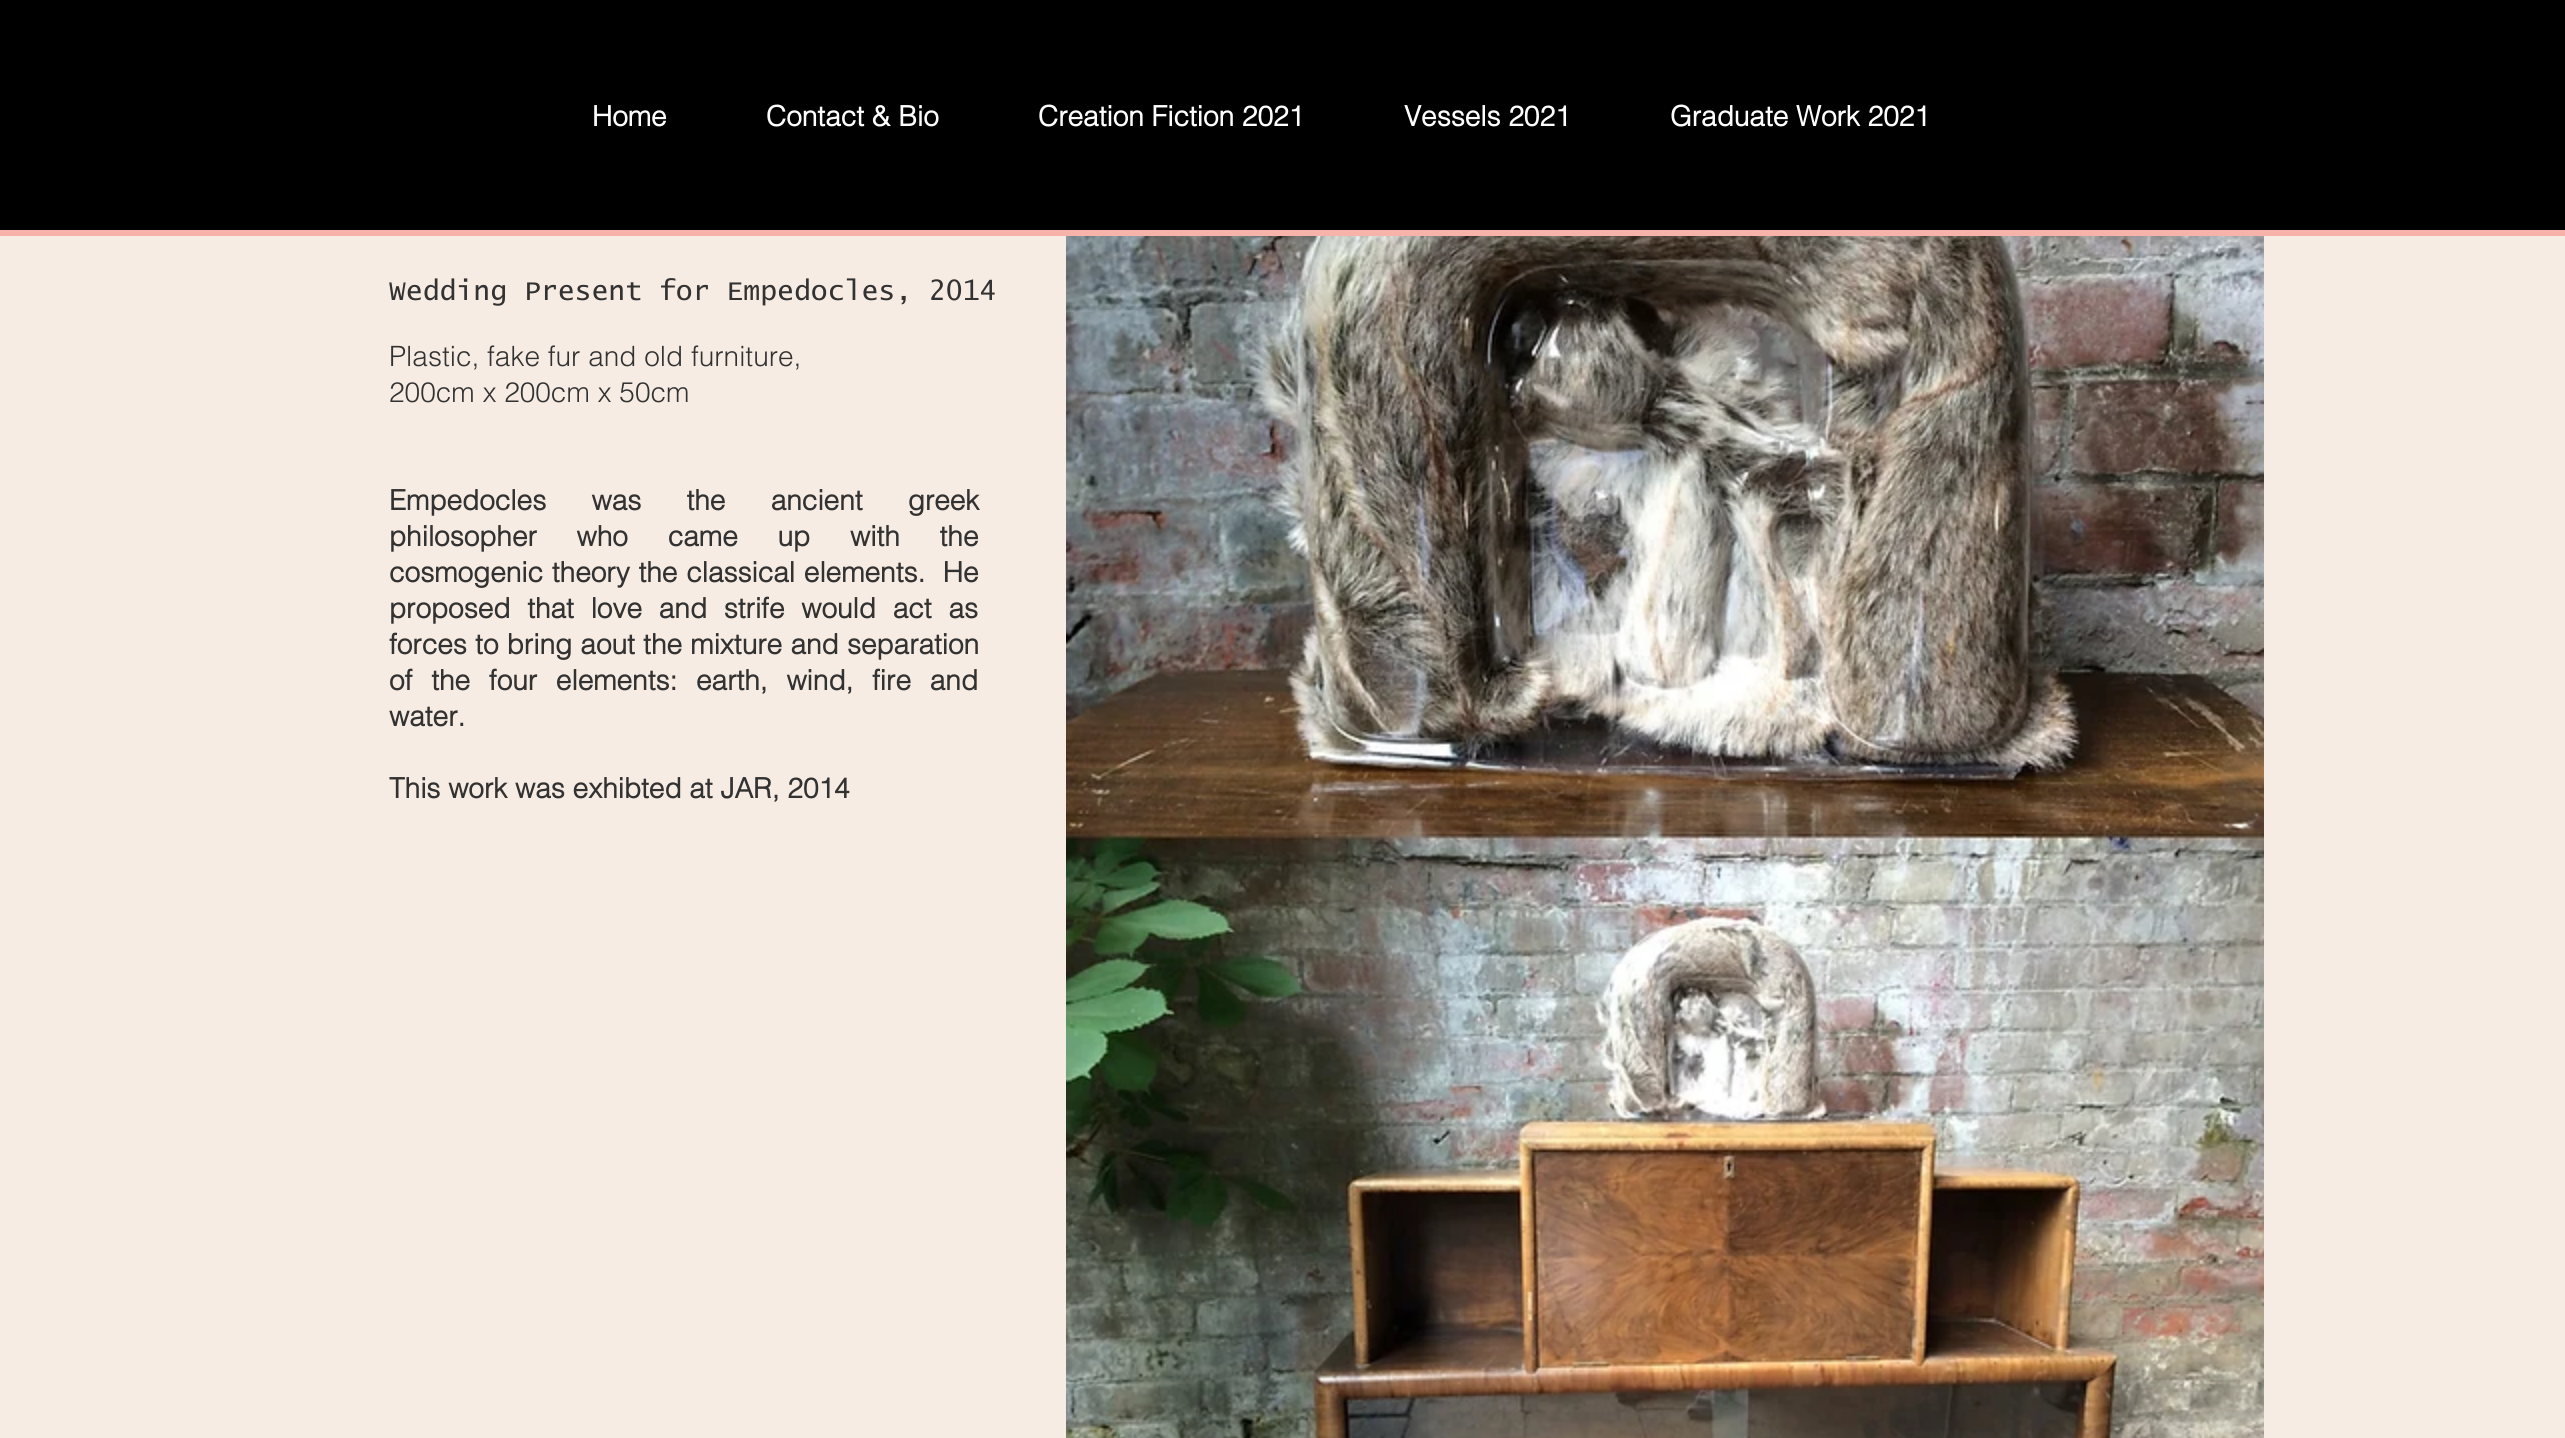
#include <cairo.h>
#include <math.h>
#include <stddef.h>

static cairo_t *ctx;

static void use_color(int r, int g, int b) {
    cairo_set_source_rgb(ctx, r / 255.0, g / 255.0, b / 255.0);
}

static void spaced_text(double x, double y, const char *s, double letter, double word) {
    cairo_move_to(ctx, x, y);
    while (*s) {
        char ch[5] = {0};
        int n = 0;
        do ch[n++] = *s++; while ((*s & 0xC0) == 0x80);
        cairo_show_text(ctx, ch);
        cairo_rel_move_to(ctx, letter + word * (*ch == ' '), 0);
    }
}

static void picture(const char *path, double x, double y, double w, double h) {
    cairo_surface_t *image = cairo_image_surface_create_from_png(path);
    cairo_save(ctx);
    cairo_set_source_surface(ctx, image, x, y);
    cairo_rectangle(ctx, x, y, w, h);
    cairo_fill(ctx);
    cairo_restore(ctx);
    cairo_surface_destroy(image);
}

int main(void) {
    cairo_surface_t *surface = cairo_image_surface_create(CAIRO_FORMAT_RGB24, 2565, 1438);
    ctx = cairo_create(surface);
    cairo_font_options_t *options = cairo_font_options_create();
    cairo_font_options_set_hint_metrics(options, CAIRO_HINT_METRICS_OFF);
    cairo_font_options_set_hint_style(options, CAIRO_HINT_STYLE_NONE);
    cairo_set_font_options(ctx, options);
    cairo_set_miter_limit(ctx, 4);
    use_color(247, 236, 228);
    cairo_paint(ctx);
    use_color(0, 0, 0);
    cairo_rectangle(ctx, 0, 0, 2565, 230);
    cairo_fill(ctx);
    use_color(247, 178, 170);
    cairo_rectangle(ctx, 0, 230, 2565, 6);
    cairo_fill(ctx);
    cairo_select_font_face(ctx, "helvetica", CAIRO_FONT_SLANT_NORMAL, CAIRO_FONT_WEIGHT_BOLD);
    cairo_set_font_size(ctx, 28);
    use_color(255, 255, 255);
    cairo_move_to(ctx, 592, 126);
    cairo_show_text(ctx, "Home");
    cairo_move_to(ctx, 766, 126);
    cairo_show_text(ctx, "Contact & Bio");
    cairo_move_to(ctx, 1038, 126);
    cairo_show_text(ctx, "Creation Fiction 2021");
    cairo_move_to(ctx, 1404, 126);
    cairo_show_text(ctx, "Vessels 2021");
    cairo_move_to(ctx, 1670, 126);
    cairo_show_text(ctx, "Graduate Work 2021");
    cairo_select_font_face(ctx, "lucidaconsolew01", CAIRO_FONT_SLANT_NORMAL, CAIRO_FONT_WEIGHT_NORMAL);
    use_color(50, 50, 50);
    cairo_move_to(ctx, 389, 300);
    cairo_show_text(ctx, "Wedding Present for Empedocles, 2014");
    picture("img1.png", 1066, 236, 1198, 1202);
    cairo_select_font_face(ctx, "helvetica Light", CAIRO_FONT_SLANT_NORMAL, CAIRO_FONT_WEIGHT_NORMAL);
    cairo_move_to(ctx, 389, 366);
    cairo_show_text(ctx, "Plastic, fake fur and old furniture,");
    cairo_move_to(ctx, 389, 402);
    cairo_show_text(ctx, "200cm x 200cm x 50cm");
    cairo_select_font_face(ctx, "helvetica", CAIRO_FONT_SLANT_NORMAL, CAIRO_FONT_WEIGHT_BOLD);
    spaced_text(389, 510, "Empedocles was the ancient greek", 0, 37.5);
    spaced_text(389, 546, "philosopher who came up with the", 0, 32);
    spaced_text(389, 582, "cosmogenic theory the classical elements.  He", 0, 1);
    spaced_text(389, 618, "proposed that love and strife would act as", 0, 9);
    spaced_text(389, 654, "forces to bring aout the mixture and separation", 0, 0.5);
    spaced_text(389, 690, "of the four elements: earth, wind, fire and", 0, 11);
    cairo_move_to(ctx, 389, 726);
    cairo_show_text(ctx, "water.");
    cairo_move_to(ctx, 389, 798);
    cairo_show_text(ctx, "This work was exhibted at JAR, 2014");
    cairo_surface_write_to_png(surface, "result.png");
    cairo_font_options_destroy(options);
    cairo_destroy(ctx);
    cairo_surface_destroy(surface);
    return 0;
}
